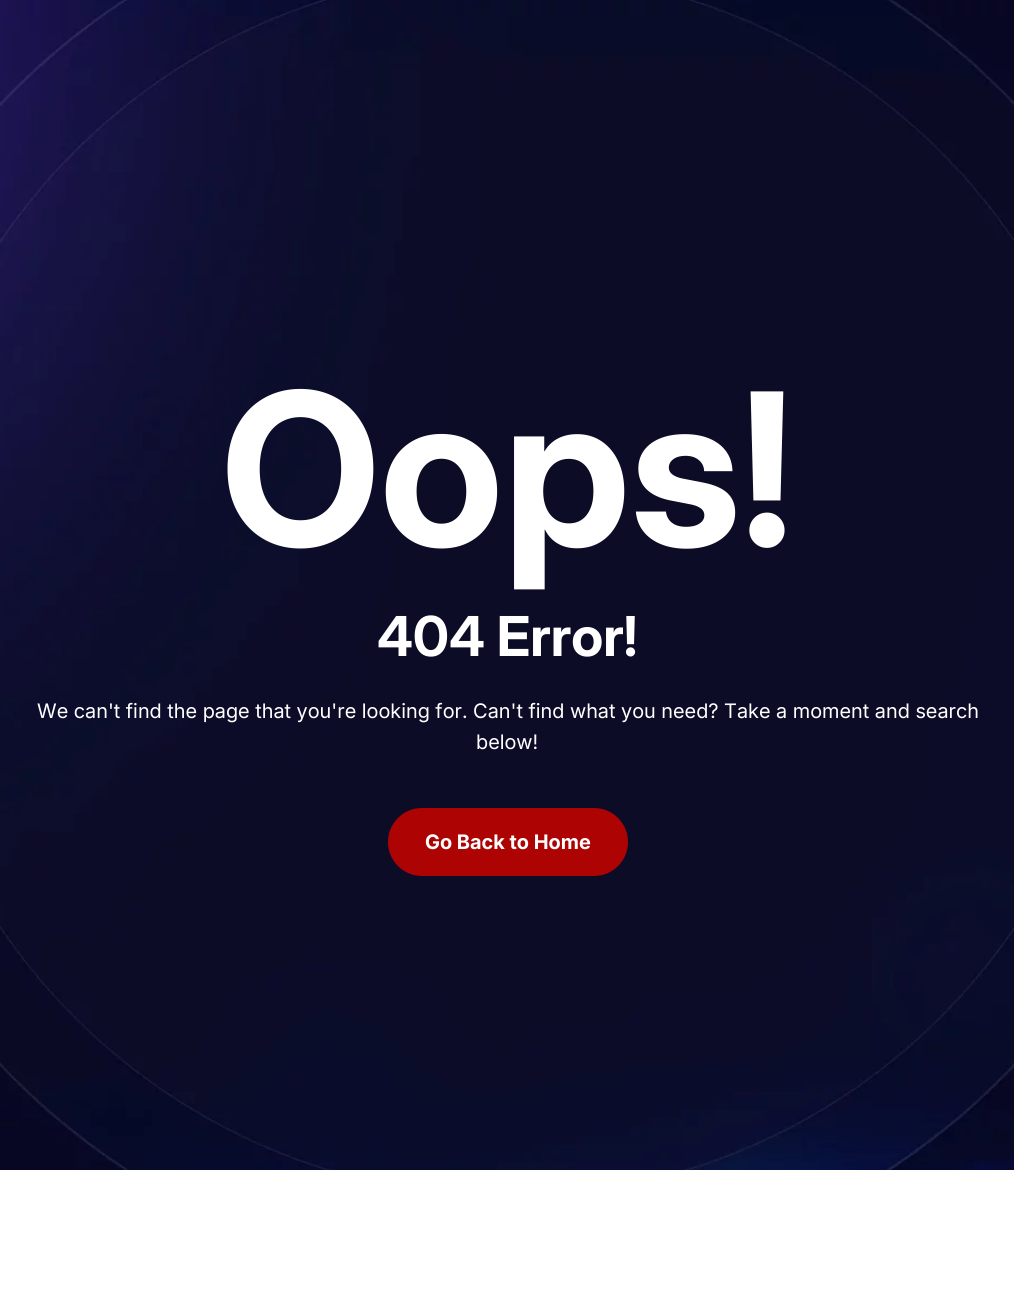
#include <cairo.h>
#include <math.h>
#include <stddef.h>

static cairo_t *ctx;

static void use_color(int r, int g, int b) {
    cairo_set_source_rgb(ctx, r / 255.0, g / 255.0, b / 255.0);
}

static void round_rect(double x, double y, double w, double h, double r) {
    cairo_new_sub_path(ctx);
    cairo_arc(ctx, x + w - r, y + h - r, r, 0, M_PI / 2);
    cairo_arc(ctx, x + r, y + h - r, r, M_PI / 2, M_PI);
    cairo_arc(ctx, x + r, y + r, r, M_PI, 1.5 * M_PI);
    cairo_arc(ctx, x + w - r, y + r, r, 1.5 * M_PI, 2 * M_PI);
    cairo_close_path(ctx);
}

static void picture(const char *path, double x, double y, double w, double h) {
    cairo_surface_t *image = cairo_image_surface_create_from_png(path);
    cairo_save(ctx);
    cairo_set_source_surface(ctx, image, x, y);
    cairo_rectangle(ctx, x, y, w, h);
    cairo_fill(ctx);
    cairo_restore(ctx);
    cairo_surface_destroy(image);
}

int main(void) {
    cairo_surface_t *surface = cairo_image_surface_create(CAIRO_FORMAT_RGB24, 1014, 1312);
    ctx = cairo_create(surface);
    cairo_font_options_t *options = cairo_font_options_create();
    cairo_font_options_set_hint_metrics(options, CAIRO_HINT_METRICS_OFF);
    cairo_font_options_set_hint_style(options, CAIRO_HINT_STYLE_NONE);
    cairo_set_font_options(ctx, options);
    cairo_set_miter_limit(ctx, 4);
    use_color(255, 255, 255);
    cairo_paint(ctx);
    picture("img1.png", 0, 0, 1014, 1170);
    cairo_select_font_face(ctx, "Inter", CAIRO_FONT_SLANT_NORMAL, CAIRO_FONT_WEIGHT_BOLD);
    cairo_set_font_size(ctx, 212.5);
    use_color(255, 255, 255);
    cairo_move_to(ctx, 221, 546);
    cairo_show_text(ctx, "Oops!");
    cairo_set_font_size(ctx, 55);
    cairo_move_to(ctx, 377, 656);
    cairo_show_text(ctx, "404 Error!");
    cairo_select_font_face(ctx, "Inter", CAIRO_FONT_SLANT_NORMAL, CAIRO_FONT_WEIGHT_NORMAL);
    cairo_set_font_size(ctx, 20);
    cairo_move_to(ctx, 37, 718);
    cairo_show_text(ctx, "We can't find the page that you're looking for. Can't find what you need? Take a moment and search");
    cairo_move_to(ctx, 476, 749);
    cairo_show_text(ctx, "below!");
    use_color(173, 3, 3);
    round_rect(388, 808, 240, 68, 34);
    cairo_fill(ctx);
    cairo_select_font_face(ctx, "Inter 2", CAIRO_FONT_SLANT_NORMAL, CAIRO_FONT_WEIGHT_BOLD);
    use_color(255, 255, 255);
    cairo_move_to(ctx, 425, 849);
    cairo_show_text(ctx, "Go Back to Home");
    cairo_surface_write_to_png(surface, "result.png");
    cairo_font_options_destroy(options);
    cairo_destroy(ctx);
    cairo_surface_destroy(surface);
    return 0;
}
